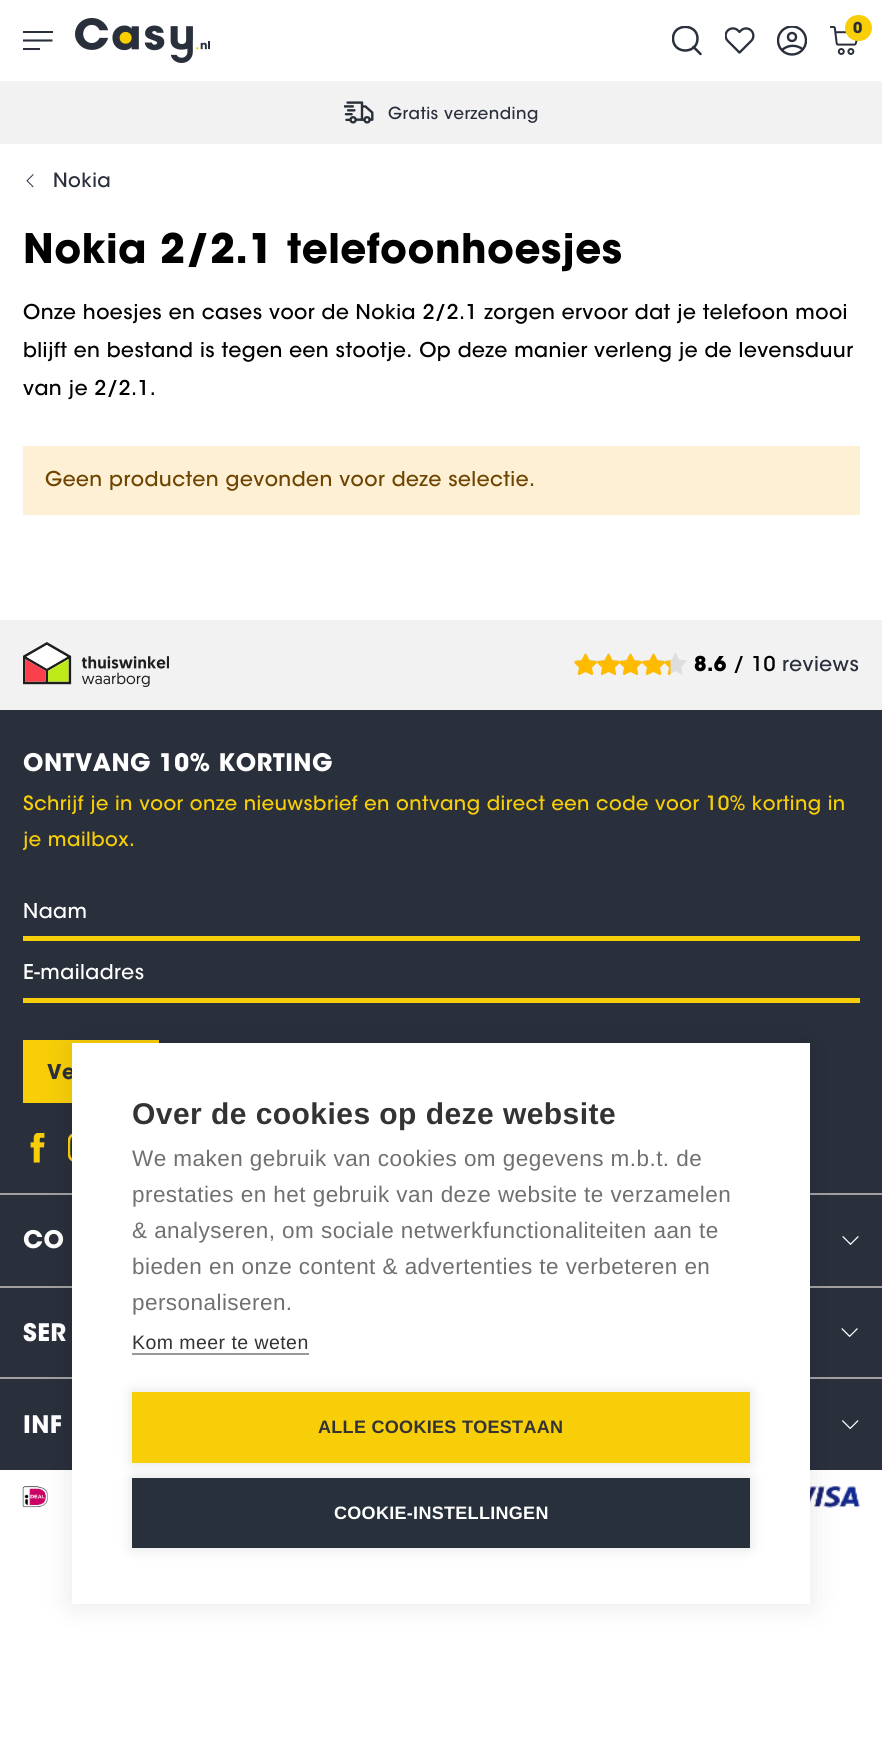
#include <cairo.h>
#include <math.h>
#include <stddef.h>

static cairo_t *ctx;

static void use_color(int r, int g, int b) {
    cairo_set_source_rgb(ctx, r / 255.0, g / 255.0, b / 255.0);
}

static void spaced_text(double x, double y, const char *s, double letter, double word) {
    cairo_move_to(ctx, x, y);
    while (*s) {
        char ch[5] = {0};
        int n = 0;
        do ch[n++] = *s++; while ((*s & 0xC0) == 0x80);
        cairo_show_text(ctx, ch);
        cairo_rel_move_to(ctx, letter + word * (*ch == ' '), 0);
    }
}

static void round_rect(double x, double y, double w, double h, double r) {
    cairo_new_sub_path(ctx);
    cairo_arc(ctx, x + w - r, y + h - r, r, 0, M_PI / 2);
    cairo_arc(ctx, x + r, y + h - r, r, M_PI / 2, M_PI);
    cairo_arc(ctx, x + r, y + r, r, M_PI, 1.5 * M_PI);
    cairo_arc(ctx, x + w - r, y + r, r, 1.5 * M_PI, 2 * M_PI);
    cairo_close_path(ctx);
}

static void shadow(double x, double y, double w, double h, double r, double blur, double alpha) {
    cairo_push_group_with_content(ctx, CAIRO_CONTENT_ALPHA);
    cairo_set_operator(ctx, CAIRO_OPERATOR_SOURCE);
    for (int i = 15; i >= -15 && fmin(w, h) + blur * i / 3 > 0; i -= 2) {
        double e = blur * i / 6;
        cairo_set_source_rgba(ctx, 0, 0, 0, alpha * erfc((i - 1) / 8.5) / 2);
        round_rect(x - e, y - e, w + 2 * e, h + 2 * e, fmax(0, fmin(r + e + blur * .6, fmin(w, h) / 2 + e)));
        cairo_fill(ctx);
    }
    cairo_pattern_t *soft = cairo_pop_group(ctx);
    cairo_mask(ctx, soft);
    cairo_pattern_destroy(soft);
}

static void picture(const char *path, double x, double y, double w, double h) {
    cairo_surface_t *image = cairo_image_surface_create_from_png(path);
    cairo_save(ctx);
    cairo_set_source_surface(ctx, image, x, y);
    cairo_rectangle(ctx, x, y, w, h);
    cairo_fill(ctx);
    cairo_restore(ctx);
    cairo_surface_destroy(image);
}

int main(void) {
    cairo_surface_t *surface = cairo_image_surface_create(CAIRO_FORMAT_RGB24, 882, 1738);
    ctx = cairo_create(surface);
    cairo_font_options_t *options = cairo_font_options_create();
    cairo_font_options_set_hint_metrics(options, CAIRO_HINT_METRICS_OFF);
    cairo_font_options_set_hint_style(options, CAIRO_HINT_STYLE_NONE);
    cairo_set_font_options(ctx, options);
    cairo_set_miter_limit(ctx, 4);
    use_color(255, 255, 255);
    cairo_paint(ctx);
    use_color(244, 244, 244);
    cairo_rectangle(ctx, 0, 81, 882, 2);
    cairo_fill(ctx);
    use_color(41, 47, 59);
    cairo_rectangle(ctx, 23, 31, 30, 2);
    cairo_fill(ctx);
    cairo_save(ctx);
    cairo_rectangle(ctx, 23, 26, 30, 30);
    cairo_clip(ctx);
    cairo_new_path(ctx);
    cairo_move_to(ctx, 22.5, 40.5);
    cairo_line_to(ctx, 52.5, 40.5);
    cairo_set_line_width(ctx, 2.1);
    cairo_stroke(ctx);
    cairo_restore(ctx);
    cairo_rectangle(ctx, 23, 48, 17, 2);
    cairo_fill(ctx);
    picture("img1.png", 75, 18, 135, 45);
    cairo_save(ctx);
    cairo_rectangle(ctx, 672, 26, 30, 30);
    cairo_clip(ctx);
    cairo_new_path(ctx);
    cairo_move_to(ctx, 697.5, 38.5);
    cairo_curve_to(ctx, 697.5, 54.5, 673, 54.5, 673, 38.5);
    cairo_curve_to(ctx, 673, 23, 697.5, 23, 697.5, 38.5);
    cairo_close_path(ctx);
    cairo_set_line_width(ctx, 2.5);
    cairo_set_line_cap(ctx, CAIRO_LINE_CAP_ROUND);
    cairo_set_line_join(ctx, CAIRO_LINE_JOIN_ROUND);
    cairo_stroke(ctx);
    cairo_restore(ctx);
    cairo_new_path(ctx);
    cairo_move_to(ctx, 700.5, 54);
    cairo_line_to(ctx, 693.5, 47);
    cairo_set_line_width(ctx, 2.5);
    cairo_set_line_cap(ctx, CAIRO_LINE_CAP_ROUND);
    cairo_set_line_join(ctx, CAIRO_LINE_JOIN_ROUND);
    cairo_stroke(ctx);
    picture("img2.png", 725, 27, 30, 27);
    cairo_save(ctx);
    cairo_rectangle(ctx, 777, 26, 30, 30);
    cairo_clip(ctx);
    cairo_arc(ctx, 792, 40.5, 14, 0, 2 * M_PI);
    cairo_set_line_width(ctx, 2.4);
    cairo_set_line_cap(ctx, CAIRO_LINE_CAP_BUTT);
    cairo_set_line_join(ctx, CAIRO_LINE_JOIN_MITER);
    cairo_stroke(ctx);
    cairo_restore(ctx);
    cairo_new_path(ctx);
    cairo_move_to(ctx, 782, 50);
    cairo_curve_to(ctx, 788, 44.5, 797, 44.5, 803, 49.5);
    cairo_set_line_width(ctx, 2.4);
    cairo_set_line_cap(ctx, CAIRO_LINE_CAP_BUTT);
    cairo_set_line_join(ctx, CAIRO_LINE_JOIN_MITER);
    cairo_stroke(ctx);
    cairo_arc(ctx, 792, 37, 4, 0, 2 * M_PI);
    cairo_stroke(ctx);
    picture("img3.png", 830, 26, 28, 29);
    use_color(248, 206, 8);
    round_rect(845, 15, 27, 26, 13);
    cairo_fill(ctx);
    cairo_select_font_face(ctx, "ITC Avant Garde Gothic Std", CAIRO_FONT_SLANT_NORMAL, CAIRO_FONT_WEIGHT_BOLD);
    cairo_set_font_size(ctx, 15);
    use_color(41, 47, 59);
    spaced_text(853, 33, "0", 0.45, 0);
    use_color(242, 242, 242);
    cairo_rectangle(ctx, 0, 83, 882, 61);
    cairo_fill(ctx);
    picture("img4.png", 344, 101, 30, 23);
    cairo_select_font_face(ctx, "ITC Avant Garde Gothic Std Medium", CAIRO_FONT_SLANT_NORMAL, CAIRO_FONT_WEIGHT_NORMAL);
    cairo_set_font_size(ctx, 16.5);
    use_color(41, 47, 59);
    spaced_text(388, 119, "Gratis verzending", 0.45, 0);
    picture("img5.png", 26, 174, 8, 14);
    cairo_set_font_size(ctx, 19.5);
    spaced_text(53, 187, "Nokia", 0.45, 0);
    cairo_select_font_face(ctx, "ITC Avant Garde Gothic Std", CAIRO_FONT_SLANT_NORMAL, CAIRO_FONT_WEIGHT_BOLD);
    cairo_set_font_size(ctx, 40.5);
    use_color(0, 0, 0);
    spaced_text(23, 263, "Nokia 2/2.1 telefoonhoesjes", 0.45, 0);
    cairo_select_font_face(ctx, "ITC Avant Garde Gothic Std Medium", CAIRO_FONT_SLANT_NORMAL, CAIRO_FONT_WEIGHT_NORMAL);
    cairo_set_font_size(ctx, 20.25);
    spaced_text(23, 319, "Onze hoesjes en cases voor de Nokia 2/2.1 zorgen ervoor dat je telefoon mooi", 0.45, 0);
    spaced_text(23, 357, "blijft en bestand is tegen een stootje. Op deze manier verleng je de levensduur", 0.45, 0);
    spaced_text(23, 395, "van je 2/2.1.", 0.45, 0);
    use_color(253, 240, 213);
    cairo_rectangle(ctx, 23, 446, 837, 69);
    cairo_fill(ctx);
    use_color(111, 68, 0);
    spaced_text(45, 486, "Geen producten gevonden voor deze selectie.", 0.45, 0);
    use_color(242, 242, 242);
    cairo_rectangle(ctx, 0, 620, 882, 90);
    cairo_fill(ctx);
    picture("img6.png", 23, 642, 146, 45);
    picture("img7.png", 575, 652, 112, 23);
    picture("img8.png", 574, 654, 97, 21);
    cairo_select_font_face(ctx, "ITC Avant Garde Gothic Std", CAIRO_FONT_SLANT_NORMAL, CAIRO_FONT_WEIGHT_BOLD);
    use_color(0, 0, 0);
    spaced_text(694, 671, "8.6", 0.45, 0);
    cairo_select_font_face(ctx, "ITC Avant Garde Gothic Std Medium", CAIRO_FONT_SLANT_NORMAL, CAIRO_FONT_WEIGHT_NORMAL);
    spaced_text(733, 671, "/ 10", 0.45, 0);
    use_color(41, 47, 59);
    spaced_text(782, 671, "reviews", 0.45, 0);
    cairo_rectangle(ctx, 0, 710, 882, 760);
    cairo_fill(ctx);
    cairo_select_font_face(ctx, "ITC Avant Garde Gothic Std", CAIRO_FONT_SLANT_NORMAL, CAIRO_FONT_WEIGHT_BOLD);
    cairo_set_font_size(ctx, 24);
    use_color(255, 255, 255);
    spaced_text(23, 771, "ONTVANG 10% KORTING", 0.45, 0);
    cairo_select_font_face(ctx, "ITC Avant Garde Gothic Std Medium", CAIRO_FONT_SLANT_NORMAL, CAIRO_FONT_WEIGHT_NORMAL);
    cairo_set_font_size(ctx, 19.5);
    use_color(248, 206, 8);
    spaced_text(23, 810, "Schrijf je in voor onze nieuwsbrief en ontvang direct een code voor 10% korting in", 0.45, 0);
    spaced_text(23, 846, "je mailbox.", 0.45, 0);
    cairo_rectangle(ctx, 23, 936, 837, 5);
    cairo_fill(ctx);
    cairo_set_font_size(ctx, 20.25);
    use_color(255, 255, 255);
    spaced_text(23, 918, "Naam", 0.45, 0);
    use_color(248, 206, 8);
    cairo_rectangle(ctx, 23, 998, 837, 5);
    cairo_fill(ctx);
    use_color(255, 255, 255);
    spaced_text(23, 979, "E-mailadres", 0.45, 0);
    use_color(248, 206, 8);
    cairo_rectangle(ctx, 23, 1040, 136, 63);
    cairo_fill(ctx);
    cairo_select_font_face(ctx, "ITC Avant Garde Gothic Std", CAIRO_FONT_SLANT_NORMAL, CAIRO_FONT_WEIGHT_BOLD);
    use_color(41, 47, 59);
    spaced_text(47, 1079, "Ve", 0.45, 0);
    picture("img9.png", 30, 1133, 15, 30);
    picture("img10.png", 68, 1133, 4, 29);
    use_color(160, 160, 160);
    cairo_rectangle(ctx, 0, 1193, 882, 2);
    cairo_fill(ctx);
    cairo_set_font_size(ctx, 24);
    use_color(255, 255, 255);
    spaced_text(23, 1248, "CO", 0.45, 0);
    picture("img11.png", 842, 1236, 17, 9);
    use_color(160, 160, 160);
    cairo_rectangle(ctx, 0, 1286, 882, 2);
    cairo_fill(ctx);
    use_color(255, 255, 255);
    spaced_text(23, 1341, "SER", 0.45, 0);
    picture("img12.png", 841, 1328, 17, 9);
    use_color(160, 160, 160);
    cairo_rectangle(ctx, 0, 1377, 882, 2);
    cairo_fill(ctx);
    use_color(255, 255, 255);
    spaced_text(23, 1433, "INF", 0.45, 0);
    picture("img13.png", 842, 1420, 17, 10);
    picture("img14.png", 22, 1486, 26, 22);
    picture("img15.png", 810, 1486, 50, 22);
    use_color(0, 0, 0);
    shadow(72, 1043, 738, 561, 0, 15, 0.1);
    use_color(255, 255, 255);
    cairo_rectangle(ctx, 72, 1043, 738, 561);
    cairo_fill(ctx);
    cairo_select_font_face(ctx, "Liberation Sans", CAIRO_FONT_SLANT_NORMAL, CAIRO_FONT_WEIGHT_BOLD);
    cairo_set_font_size(ctx, 30);
    use_color(51, 51, 51);
    spaced_text(132, 1124, "Over de cookies op deze website", 0.45, 0);
    cairo_select_font_face(ctx, "Liberation Sans", CAIRO_FONT_SLANT_NORMAL, CAIRO_FONT_WEIGHT_NORMAL);
    cairo_set_font_size(ctx, 22.5);
    use_color(112, 112, 112);
    spaced_text(132, 1166, "We maken gebruik van cookies om gegevens m.b.t. de", 0.45, 0);
    spaced_text(132, 1202, "prestaties en het gebruik van deze website te verzamelen", 0.45, 0);
    spaced_text(132, 1238, "& analyseren, om sociale netwerkfunctionaliteiten aan te", 0.45, 0);
    spaced_text(132, 1274, "bieden en onze content & advertenties te verbeteren en", 0.45, 0);
    spaced_text(132, 1310, "personaliseren.", 0.45, 0);
    cairo_set_font_size(ctx, 19.5);
    use_color(51, 51, 51);
    spaced_text(132, 1349, "Kom meer te weten", 0.45, 0);
    use_color(153, 153, 153);
    cairo_rectangle(ctx, 132, 1353, 177, 2);
    cairo_fill(ctx);
    use_color(0, 0, 0);
    shadow(132, 1392, 618, 71, 0, 7.5, 0.12);
    use_color(248, 206, 8);
    cairo_rectangle(ctx, 132, 1392, 618, 71);
    cairo_fill(ctx);
    cairo_select_font_face(ctx, "Liberation Sans", CAIRO_FONT_SLANT_NORMAL, CAIRO_FONT_WEIGHT_BOLD);
    cairo_set_font_size(ctx, 18);
    use_color(51, 51, 51);
    spaced_text(318, 1433, "ALLE COOKIES TOESTAAN", 0.3, 0);
    use_color(0, 0, 0);
    shadow(132, 1478, 618, 70, 0, 7.5, 0.12);
    use_color(40, 48, 59);
    cairo_rectangle(ctx, 132, 1478, 618, 70);
    cairo_fill(ctx);
    use_color(255, 255, 255);
    spaced_text(334, 1519, "COOKIE-INSTELLINGEN", 0.3, 0);
    cairo_surface_write_to_png(surface, "result.png");
    cairo_font_options_destroy(options);
    cairo_destroy(ctx);
    cairo_surface_destroy(surface);
    return 0;
}
